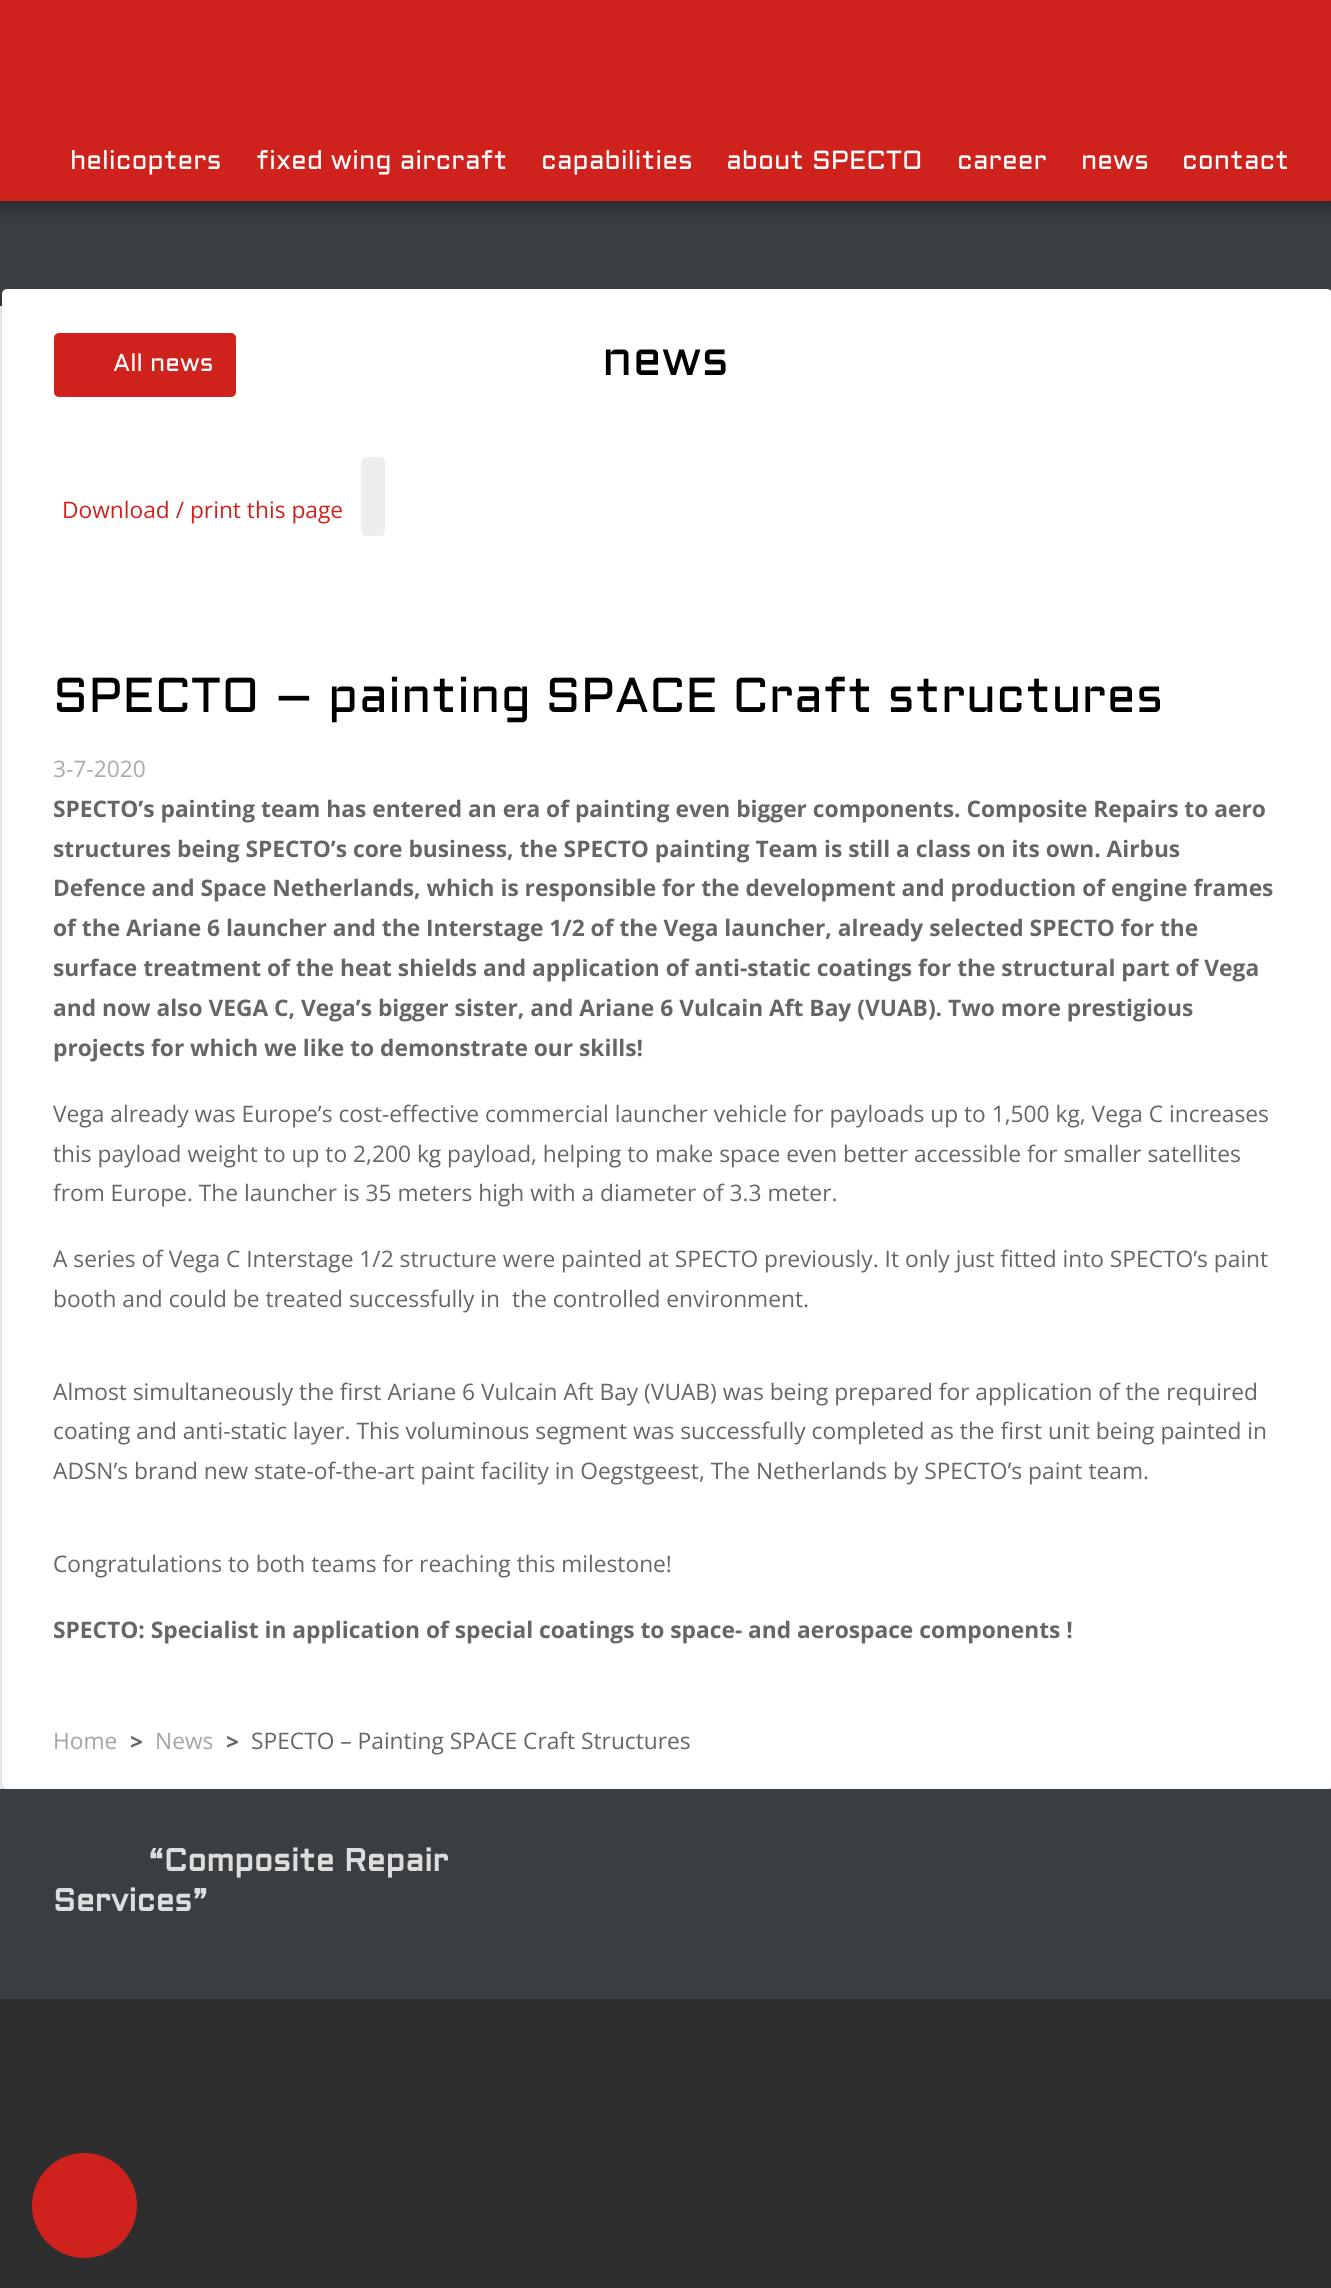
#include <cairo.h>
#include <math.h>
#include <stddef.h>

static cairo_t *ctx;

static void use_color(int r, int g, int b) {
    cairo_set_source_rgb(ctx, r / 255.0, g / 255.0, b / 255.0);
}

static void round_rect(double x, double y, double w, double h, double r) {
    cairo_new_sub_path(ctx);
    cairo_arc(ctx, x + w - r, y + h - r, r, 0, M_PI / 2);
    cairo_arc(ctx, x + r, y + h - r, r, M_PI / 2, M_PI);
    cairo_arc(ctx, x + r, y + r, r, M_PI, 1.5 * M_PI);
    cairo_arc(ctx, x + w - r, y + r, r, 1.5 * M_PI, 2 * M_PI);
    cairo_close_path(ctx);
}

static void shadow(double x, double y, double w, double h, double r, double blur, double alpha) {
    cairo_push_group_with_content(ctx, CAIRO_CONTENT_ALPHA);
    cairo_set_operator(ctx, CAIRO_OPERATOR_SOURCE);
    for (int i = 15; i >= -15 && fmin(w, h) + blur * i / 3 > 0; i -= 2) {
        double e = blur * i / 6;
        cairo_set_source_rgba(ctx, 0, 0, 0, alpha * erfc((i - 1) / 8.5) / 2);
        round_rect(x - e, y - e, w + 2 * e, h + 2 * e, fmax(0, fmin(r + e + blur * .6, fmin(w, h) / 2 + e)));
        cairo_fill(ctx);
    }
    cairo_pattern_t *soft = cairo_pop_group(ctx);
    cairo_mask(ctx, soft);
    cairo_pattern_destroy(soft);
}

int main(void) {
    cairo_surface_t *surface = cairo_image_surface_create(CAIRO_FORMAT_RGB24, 1331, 2288);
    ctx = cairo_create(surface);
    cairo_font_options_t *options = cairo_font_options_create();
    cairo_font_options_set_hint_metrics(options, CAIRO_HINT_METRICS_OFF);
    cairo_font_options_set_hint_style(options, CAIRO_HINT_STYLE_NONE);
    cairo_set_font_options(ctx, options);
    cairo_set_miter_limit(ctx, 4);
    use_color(46, 46, 46);
    cairo_paint(ctx);
    use_color(56, 62, 66);
    cairo_rectangle(ctx, 0, 201, 1331, 105);
    cairo_fill(ctx);
    use_color(0, 0, 0);
    shadow(0, 0, 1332, 201, 0, 11.5, 0.6);
    use_color(207, 34, 29);
    cairo_rectangle(ctx, 0, 0, 1331, 201);
    cairo_fill(ctx);
    cairo_select_font_face(ctx, "Aldrich", CAIRO_FONT_SLANT_NORMAL, CAIRO_FONT_WEIGHT_NORMAL);
    cairo_set_font_size(ctx, 26.25);
    use_color(255, 255, 255);
    cairo_move_to(ctx, 70, 169);
    cairo_show_text(ctx, "helicopters");
    cairo_move_to(ctx, 256, 169);
    cairo_show_text(ctx, "fixed wing aircraft");
    cairo_move_to(ctx, 541, 169);
    cairo_show_text(ctx, "capabilities");
    cairo_move_to(ctx, 726, 169);
    cairo_show_text(ctx, "about SPECTO");
    cairo_move_to(ctx, 957, 169);
    cairo_show_text(ctx, "career");
    cairo_move_to(ctx, 1081, 169);
    cairo_show_text(ctx, "news");
    cairo_move_to(ctx, 1182, 169);
    cairo_show_text(ctx, "contact");
    cairo_rectangle(ctx, 0, 306, 1331, 1483);
    cairo_fill(ctx);
    use_color(0, 0, 0);
    shadow(2, 292, 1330, 1500, 5, 2.5, 0.3);
    use_color(255, 255, 255);
    round_rect(2, 289, 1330, 1500, 5);
    cairo_fill(ctx);
    cairo_set_font_size(ctx, 49);
    use_color(0, 0, 0);
    cairo_move_to(ctx, 602, 375);
    cairo_show_text(ctx, "news");
    use_color(207, 34, 29);
    round_rect(54, 333, 182, 64, 5);
    cairo_fill(ctx);
    cairo_set_font_size(ctx, 24.5);
    use_color(255, 255, 255);
    cairo_move_to(ctx, 113, 371);
    cairo_show_text(ctx, "All news");
    cairo_select_font_face(ctx, "Open Sans", CAIRO_FONT_SLANT_NORMAL, CAIRO_FONT_WEIGHT_NORMAL);
    cairo_set_font_size(ctx, 22.75);
    use_color(207, 34, 29);
    cairo_move_to(ctx, 62, 518);
    cairo_show_text(ctx, "Download / print this page");
    use_color(238, 238, 238);
    round_rect(361, 457, 24, 79, 5);
    cairo_fill(ctx);
    cairo_select_font_face(ctx, "Aldrich", CAIRO_FONT_SLANT_NORMAL, CAIRO_FONT_WEIGHT_NORMAL);
    cairo_set_font_size(ctx, 49);
    use_color(0, 0, 0);
    cairo_move_to(ctx, 53, 712);
    cairo_show_text(ctx, "SPECTO – painting SPACE Craft structures");
    cairo_select_font_face(ctx, "Open Sans", CAIRO_FONT_SLANT_NORMAL, CAIRO_FONT_WEIGHT_NORMAL);
    cairo_set_font_size(ctx, 22.75);
    use_color(170, 170, 170);
    cairo_move_to(ctx, 53, 777);
    cairo_show_text(ctx, "3-7-2020");
    cairo_select_font_face(ctx, "Open Sans", CAIRO_FONT_SLANT_NORMAL, CAIRO_FONT_WEIGHT_BOLD);
    use_color(102, 102, 102);
    cairo_move_to(ctx, 53, 817);
    cairo_show_text(ctx, "SPECTO’s painting team has entered an era of painting even bigger components. Composite Repairs to aero");
    cairo_move_to(ctx, 53, 857);
    cairo_show_text(ctx, "structures being SPECTO’s core business, the SPECTO painting Team is still a class on its own. Airbus");
    cairo_move_to(ctx, 53, 896);
    cairo_show_text(ctx, "Defence and Space Netherlands, which is responsible for the development and production of engine frames");
    cairo_move_to(ctx, 53, 936);
    cairo_show_text(ctx, "of the Ariane 6 launcher and the Interstage 1/2 of the Vega launcher, already selected SPECTO for the");
    cairo_move_to(ctx, 53, 976);
    cairo_show_text(ctx, "surface treatment of the heat shields and application of anti-static coatings for the structural part of Vega");
    cairo_move_to(ctx, 53, 1016);
    cairo_show_text(ctx, "and now also VEGA C, Vega’s bigger sister, and Ariane 6 Vulcain Aft Bay (VUAB). Two more prestigious");
    cairo_move_to(ctx, 53, 1056);
    cairo_show_text(ctx, "projects for which we like to demonstrate our skills!");
    cairo_select_font_face(ctx, "Open Sans", CAIRO_FONT_SLANT_NORMAL, CAIRO_FONT_WEIGHT_NORMAL);
    cairo_move_to(ctx, 53, 1122);
    cairo_show_text(ctx, "Vega already was Europe’s cost-effective commercial launcher vehicle for payloads up to 1,500 kg, Vega C increases");
    cairo_move_to(ctx, 53, 1162);
    cairo_show_text(ctx, "this payload weight to up to 2,200 kg payload, helping to make space even better accessible for smaller satellites");
    cairo_move_to(ctx, 53, 1201);
    cairo_show_text(ctx, "from Europe. The launcher is 35 meters high with a diameter of 3.3 meter.");
    cairo_move_to(ctx, 53, 1267);
    cairo_show_text(ctx, "A series of Vega C Interstage 1/2 structure were painted at SPECTO previously. It only just fitted into SPECTO’s paint");
    cairo_move_to(ctx, 53, 1307);
    cairo_show_text(ctx, "booth and could be treated successfully in  the controlled environment.");
    cairo_move_to(ctx, 53, 1400);
    cairo_show_text(ctx, "Almost simultaneously the first Ariane 6 Vulcain Aft Bay (VUAB) was being prepared for application of the required");
    cairo_move_to(ctx, 53, 1439);
    cairo_show_text(ctx, "coating and anti-static layer. This voluminous segment was successfully completed as the first unit being painted in");
    cairo_move_to(ctx, 53, 1479);
    cairo_show_text(ctx, "ADSN’s brand new state-of-the-art paint facility in Oegstgeest, The Netherlands by SPECTO’s paint team.");
    cairo_move_to(ctx, 53, 1572);
    cairo_show_text(ctx, "Congratulations to both teams for reaching this milestone!");
    cairo_select_font_face(ctx, "Open Sans", CAIRO_FONT_SLANT_NORMAL, CAIRO_FONT_WEIGHT_BOLD);
    cairo_move_to(ctx, 53, 1638);
    cairo_show_text(ctx, "SPECTO: Specialist in application of special coatings to space- and aerospace components !");
    cairo_select_font_face(ctx, "Open Sans", CAIRO_FONT_SLANT_NORMAL, CAIRO_FONT_WEIGHT_NORMAL);
    use_color(164, 164, 164);
    cairo_move_to(ctx, 53, 1749);
    cairo_show_text(ctx, "Home");
    cairo_select_font_face(ctx, "Open Sans", CAIRO_FONT_SLANT_NORMAL, CAIRO_FONT_WEIGHT_BOLD);
    use_color(102, 102, 102);
    cairo_move_to(ctx, 130, 1750);
    cairo_show_text(ctx, ">");
    cairo_select_font_face(ctx, "Open Sans", CAIRO_FONT_SLANT_NORMAL, CAIRO_FONT_WEIGHT_NORMAL);
    use_color(164, 164, 164);
    cairo_move_to(ctx, 155, 1749);
    cairo_show_text(ctx, "News");
    cairo_select_font_face(ctx, "Open Sans", CAIRO_FONT_SLANT_NORMAL, CAIRO_FONT_WEIGHT_BOLD);
    use_color(102, 102, 102);
    cairo_move_to(ctx, 226, 1750);
    cairo_show_text(ctx, ">");
    cairo_select_font_face(ctx, "Open Sans", CAIRO_FONT_SLANT_NORMAL, CAIRO_FONT_WEIGHT_NORMAL);
    cairo_move_to(ctx, 251, 1749);
    cairo_show_text(ctx, "SPECTO – Painting SPACE Craft Structures");
    use_color(56, 62, 66);
    cairo_rectangle(ctx, 0, 1789, 1331, 210);
    cairo_fill(ctx);
    cairo_select_font_face(ctx, "Aldrich", CAIRO_FONT_SLANT_NORMAL, CAIRO_FONT_WEIGHT_BOLD);
    cairo_set_font_size(ctx, 31.5);
    use_color(221, 221, 221);
    cairo_move_to(ctx, 148, 1871);
    cairo_show_text(ctx, "“Composite Repair");
    cairo_move_to(ctx, 53, 1911);
    cairo_show_text(ctx, "Services”");
    use_color(207, 34, 29);
    cairo_new_path(ctx);
    cairo_arc(ctx, 84.5, 2205.5, 52.5, 0, 2 * M_PI);
    cairo_fill(ctx);
    cairo_surface_write_to_png(surface, "result.png");
    cairo_font_options_destroy(options);
    cairo_destroy(ctx);
    cairo_surface_destroy(surface);
    return 0;
}
